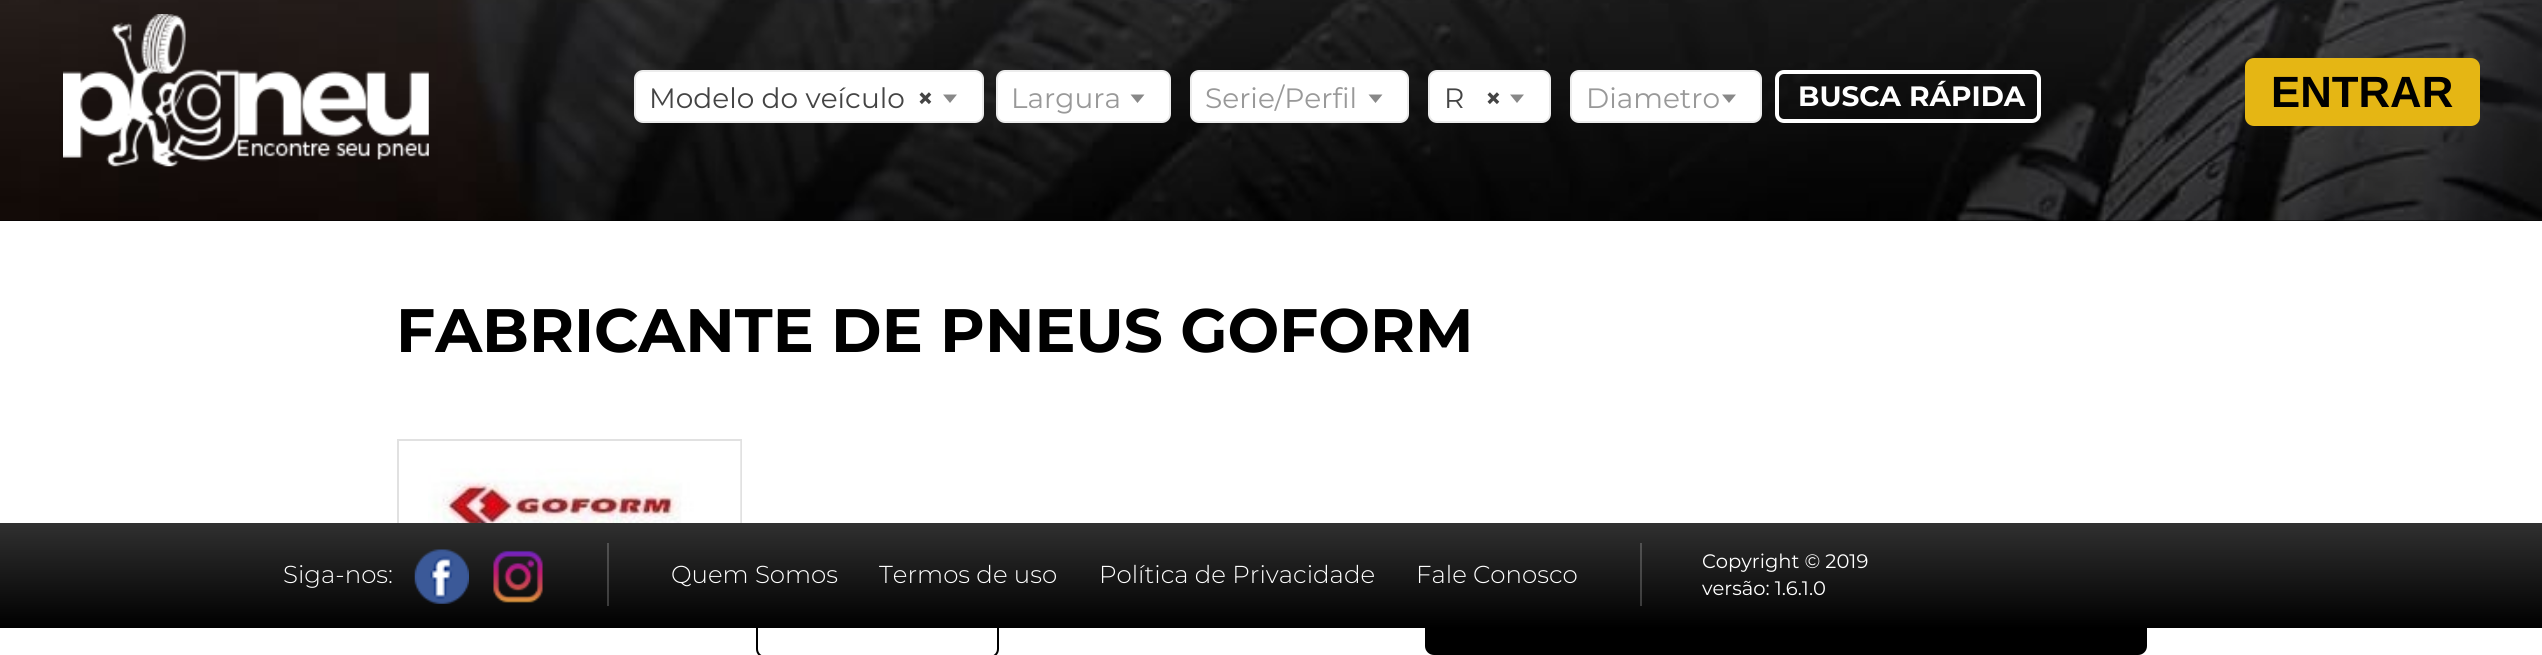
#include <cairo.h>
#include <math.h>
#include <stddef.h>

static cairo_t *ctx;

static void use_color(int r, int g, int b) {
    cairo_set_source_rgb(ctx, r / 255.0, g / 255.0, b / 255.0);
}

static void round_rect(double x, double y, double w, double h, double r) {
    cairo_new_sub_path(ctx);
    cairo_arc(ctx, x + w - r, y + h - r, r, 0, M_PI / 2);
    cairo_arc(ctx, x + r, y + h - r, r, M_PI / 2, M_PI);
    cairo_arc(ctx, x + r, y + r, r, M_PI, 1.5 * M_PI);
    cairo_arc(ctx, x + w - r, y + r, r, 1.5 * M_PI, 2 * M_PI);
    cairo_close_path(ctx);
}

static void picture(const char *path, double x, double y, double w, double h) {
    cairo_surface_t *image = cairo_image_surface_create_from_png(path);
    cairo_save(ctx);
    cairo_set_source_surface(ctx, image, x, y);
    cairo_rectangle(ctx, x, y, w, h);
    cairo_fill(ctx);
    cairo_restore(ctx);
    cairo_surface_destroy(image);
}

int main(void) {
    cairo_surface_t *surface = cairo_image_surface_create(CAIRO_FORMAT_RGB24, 2542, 655);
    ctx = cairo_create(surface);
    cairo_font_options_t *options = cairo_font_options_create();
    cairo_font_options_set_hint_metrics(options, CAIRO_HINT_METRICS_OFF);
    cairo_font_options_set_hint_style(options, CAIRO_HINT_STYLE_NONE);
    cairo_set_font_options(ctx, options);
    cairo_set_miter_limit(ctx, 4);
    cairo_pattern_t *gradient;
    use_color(255, 255, 255);
    cairo_paint(ctx);
    use_color(0, 0, 0);
    cairo_rectangle(ctx, 0, 220, 2542, 1);
    cairo_fill(ctx);
    picture("img1.png", 0, 0, 2542, 221);
    picture("img2.png", 63, 14, 366, 153);
    use_color(255, 255, 255);
    round_rect(635, 71, 348, 51, 8);
    cairo_fill_preserve(ctx);
    use_color(236, 236, 236);
    cairo_stroke(ctx);
    cairo_select_font_face(ctx, "Montserrat", CAIRO_FONT_SLANT_NORMAL, CAIRO_FONT_WEIGHT_NORMAL);
    cairo_set_font_size(ctx, 28);
    use_color(68, 68, 68);
    cairo_move_to(ctx, 649, 108);
    cairo_show_text(ctx, "Modelo do veículo");
    cairo_select_font_face(ctx, "Montserrat", CAIRO_FONT_SLANT_NORMAL, CAIRO_FONT_WEIGHT_BOLD);
    cairo_move_to(ctx, 917, 108);
    cairo_show_text(ctx, "×");
    use_color(136, 136, 136);
    cairo_new_path(ctx);
    cairo_move_to(ctx, 943, 94.5);
    cairo_line_to(ctx, 957, 94.5);
    cairo_line_to(ctx, 950, 103);
    cairo_close_path(ctx);
    cairo_fill(ctx);
    use_color(255, 255, 255);
    round_rect(997, 71, 173, 51, 8);
    cairo_fill_preserve(ctx);
    use_color(236, 236, 236);
    cairo_stroke(ctx);
    cairo_select_font_face(ctx, "Montserrat", CAIRO_FONT_SLANT_NORMAL, CAIRO_FONT_WEIGHT_NORMAL);
    use_color(153, 153, 153);
    cairo_move_to(ctx, 1011, 108);
    cairo_show_text(ctx, "Largura");
    use_color(136, 136, 136);
    cairo_new_path(ctx);
    cairo_move_to(ctx, 1130.5, 94.5);
    cairo_line_to(ctx, 1144.5, 94.5);
    cairo_line_to(ctx, 1137.5, 103);
    cairo_close_path(ctx);
    cairo_fill(ctx);
    use_color(255, 255, 255);
    round_rect(1191, 71, 217, 51, 8);
    cairo_fill_preserve(ctx);
    use_color(236, 236, 236);
    cairo_stroke(ctx);
    use_color(153, 153, 153);
    cairo_move_to(ctx, 1205, 108);
    cairo_show_text(ctx, "Serie/Perfil");
    use_color(136, 136, 136);
    cairo_new_path(ctx);
    cairo_move_to(ctx, 1368.5, 94.5);
    cairo_line_to(ctx, 1382.5, 94.5);
    cairo_line_to(ctx, 1375.5, 103);
    cairo_close_path(ctx);
    cairo_fill(ctx);
    use_color(255, 255, 255);
    round_rect(1429, 71, 121, 51, 8);
    cairo_fill_preserve(ctx);
    use_color(236, 236, 236);
    cairo_stroke(ctx);
    use_color(68, 68, 68);
    cairo_move_to(ctx, 1444, 108);
    cairo_show_text(ctx, "R");
    cairo_select_font_face(ctx, "Montserrat", CAIRO_FONT_SLANT_NORMAL, CAIRO_FONT_WEIGHT_BOLD);
    cairo_move_to(ctx, 1485, 108);
    cairo_show_text(ctx, "×");
    use_color(136, 136, 136);
    cairo_new_path(ctx);
    cairo_move_to(ctx, 1510, 94.5);
    cairo_line_to(ctx, 1524, 94.5);
    cairo_line_to(ctx, 1517, 103);
    cairo_close_path(ctx);
    cairo_fill(ctx);
    use_color(255, 255, 255);
    round_rect(1571, 71, 190, 51, 8);
    cairo_fill_preserve(ctx);
    use_color(236, 236, 236);
    cairo_stroke(ctx);
    cairo_select_font_face(ctx, "Montserrat", CAIRO_FONT_SLANT_NORMAL, CAIRO_FONT_WEIGHT_NORMAL);
    use_color(153, 153, 153);
    cairo_move_to(ctx, 1586, 108);
    cairo_show_text(ctx, "Diametro");
    use_color(136, 136, 136);
    cairo_new_path(ctx);
    cairo_move_to(ctx, 1722, 94.5);
    cairo_line_to(ctx, 1736, 94.5);
    cairo_line_to(ctx, 1729, 103);
    cairo_close_path(ctx);
    cairo_fill(ctx);
    round_rect(1777, 72, 262, 49, 7);
    use_color(255, 255, 255);
    cairo_set_line_width(ctx, 4);
    cairo_stroke(ctx);
    cairo_select_font_face(ctx, "Montserrat", CAIRO_FONT_SLANT_NORMAL, CAIRO_FONT_WEIGHT_BOLD);
    cairo_move_to(ctx, 1798, 106);
    cairo_show_text(ctx, "BUSCA RÁPIDA");
    use_color(229, 182, 20);
    round_rect(2245, 58, 235, 68, 9);
    cairo_fill(ctx);
    cairo_select_font_face(ctx, "Liberation Sans", CAIRO_FONT_SLANT_NORMAL, CAIRO_FONT_WEIGHT_BOLD);
    cairo_set_font_size(ctx, 43.75);
    use_color(0, 0, 0);
    cairo_move_to(ctx, 2271, 107);
    cairo_show_text(ctx, "ENTRAR");
    cairo_select_font_face(ctx, "Montserrat", CAIRO_FONT_SLANT_NORMAL, CAIRO_FONT_WEIGHT_BOLD);
    cairo_set_font_size(ctx, 61.25);
    cairo_move_to(ctx, 396, 352);
    cairo_show_text(ctx, "FABRICANTE DE PNEUS GOFORM");
    cairo_rectangle(ctx, 398, 440, 343, 137);
    use_color(225, 225, 225);
    cairo_set_line_width(ctx, 2);
    cairo_stroke(ctx);
    picture("img3.png", 428, 441, 313, 82);
    round_rect(757, 586, 241, 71, 8);
    use_color(0, 0, 0);
    cairo_stroke(ctx);
    round_rect(1425, 585, 722, 70, 9);
    cairo_fill(ctx);
    gradient = cairo_pattern_create_linear(1271, 523, 1271, 628);
    cairo_pattern_add_color_stop_rgba(gradient, 0, 0.188, 0.188, 0.188, 1);
    cairo_pattern_add_color_stop_rgba(gradient, 1, 0, 0, 0, 1);
    cairo_set_source(ctx, gradient);
    cairo_pattern_destroy(gradient);
    cairo_rectangle(ctx, 0, 523, 2542, 105);
    cairo_fill(ctx);
    cairo_select_font_face(ctx, "Montserrat Light", CAIRO_FONT_SLANT_NORMAL, CAIRO_FONT_WEIGHT_NORMAL);
    cairo_set_font_size(ctx, 24.5);
    use_color(255, 255, 255);
    cairo_move_to(ctx, 283, 583);
    cairo_show_text(ctx, "Siga-nos:");
    picture("img4.png", 414, 549, 55, 55);
    picture("img5.png", 493, 550, 50, 53);
    cairo_set_source_rgba(ctx, 1, 1, 1, 0.2);
    cairo_rectangle(ctx, 1640, 543, 2, 63);
    cairo_fill(ctx);
    cairo_rectangle(ctx, 607, 543, 2, 63);
    cairo_fill(ctx);
    use_color(255, 255, 255);
    cairo_move_to(ctx, 671, 583);
    cairo_show_text(ctx, "Quem Somos");
    cairo_move_to(ctx, 879, 583);
    cairo_show_text(ctx, "Termos de uso");
    cairo_move_to(ctx, 1099, 583);
    cairo_show_text(ctx, "Política de Privacidade");
    cairo_move_to(ctx, 1416, 583);
    cairo_show_text(ctx, "Fale Conosco");
    cairo_select_font_face(ctx, "Montserrat", CAIRO_FONT_SLANT_NORMAL, CAIRO_FONT_WEIGHT_NORMAL);
    cairo_set_font_size(ctx, 19.5);
    cairo_move_to(ctx, 1702, 568);
    cairo_show_text(ctx, "Copyright © 2019");
    cairo_move_to(ctx, 1702, 595);
    cairo_show_text(ctx, "versão: 1.6.1.0");
    cairo_surface_write_to_png(surface, "result.png");
    cairo_font_options_destroy(options);
    cairo_destroy(ctx);
    cairo_surface_destroy(surface);
    return 0;
}
